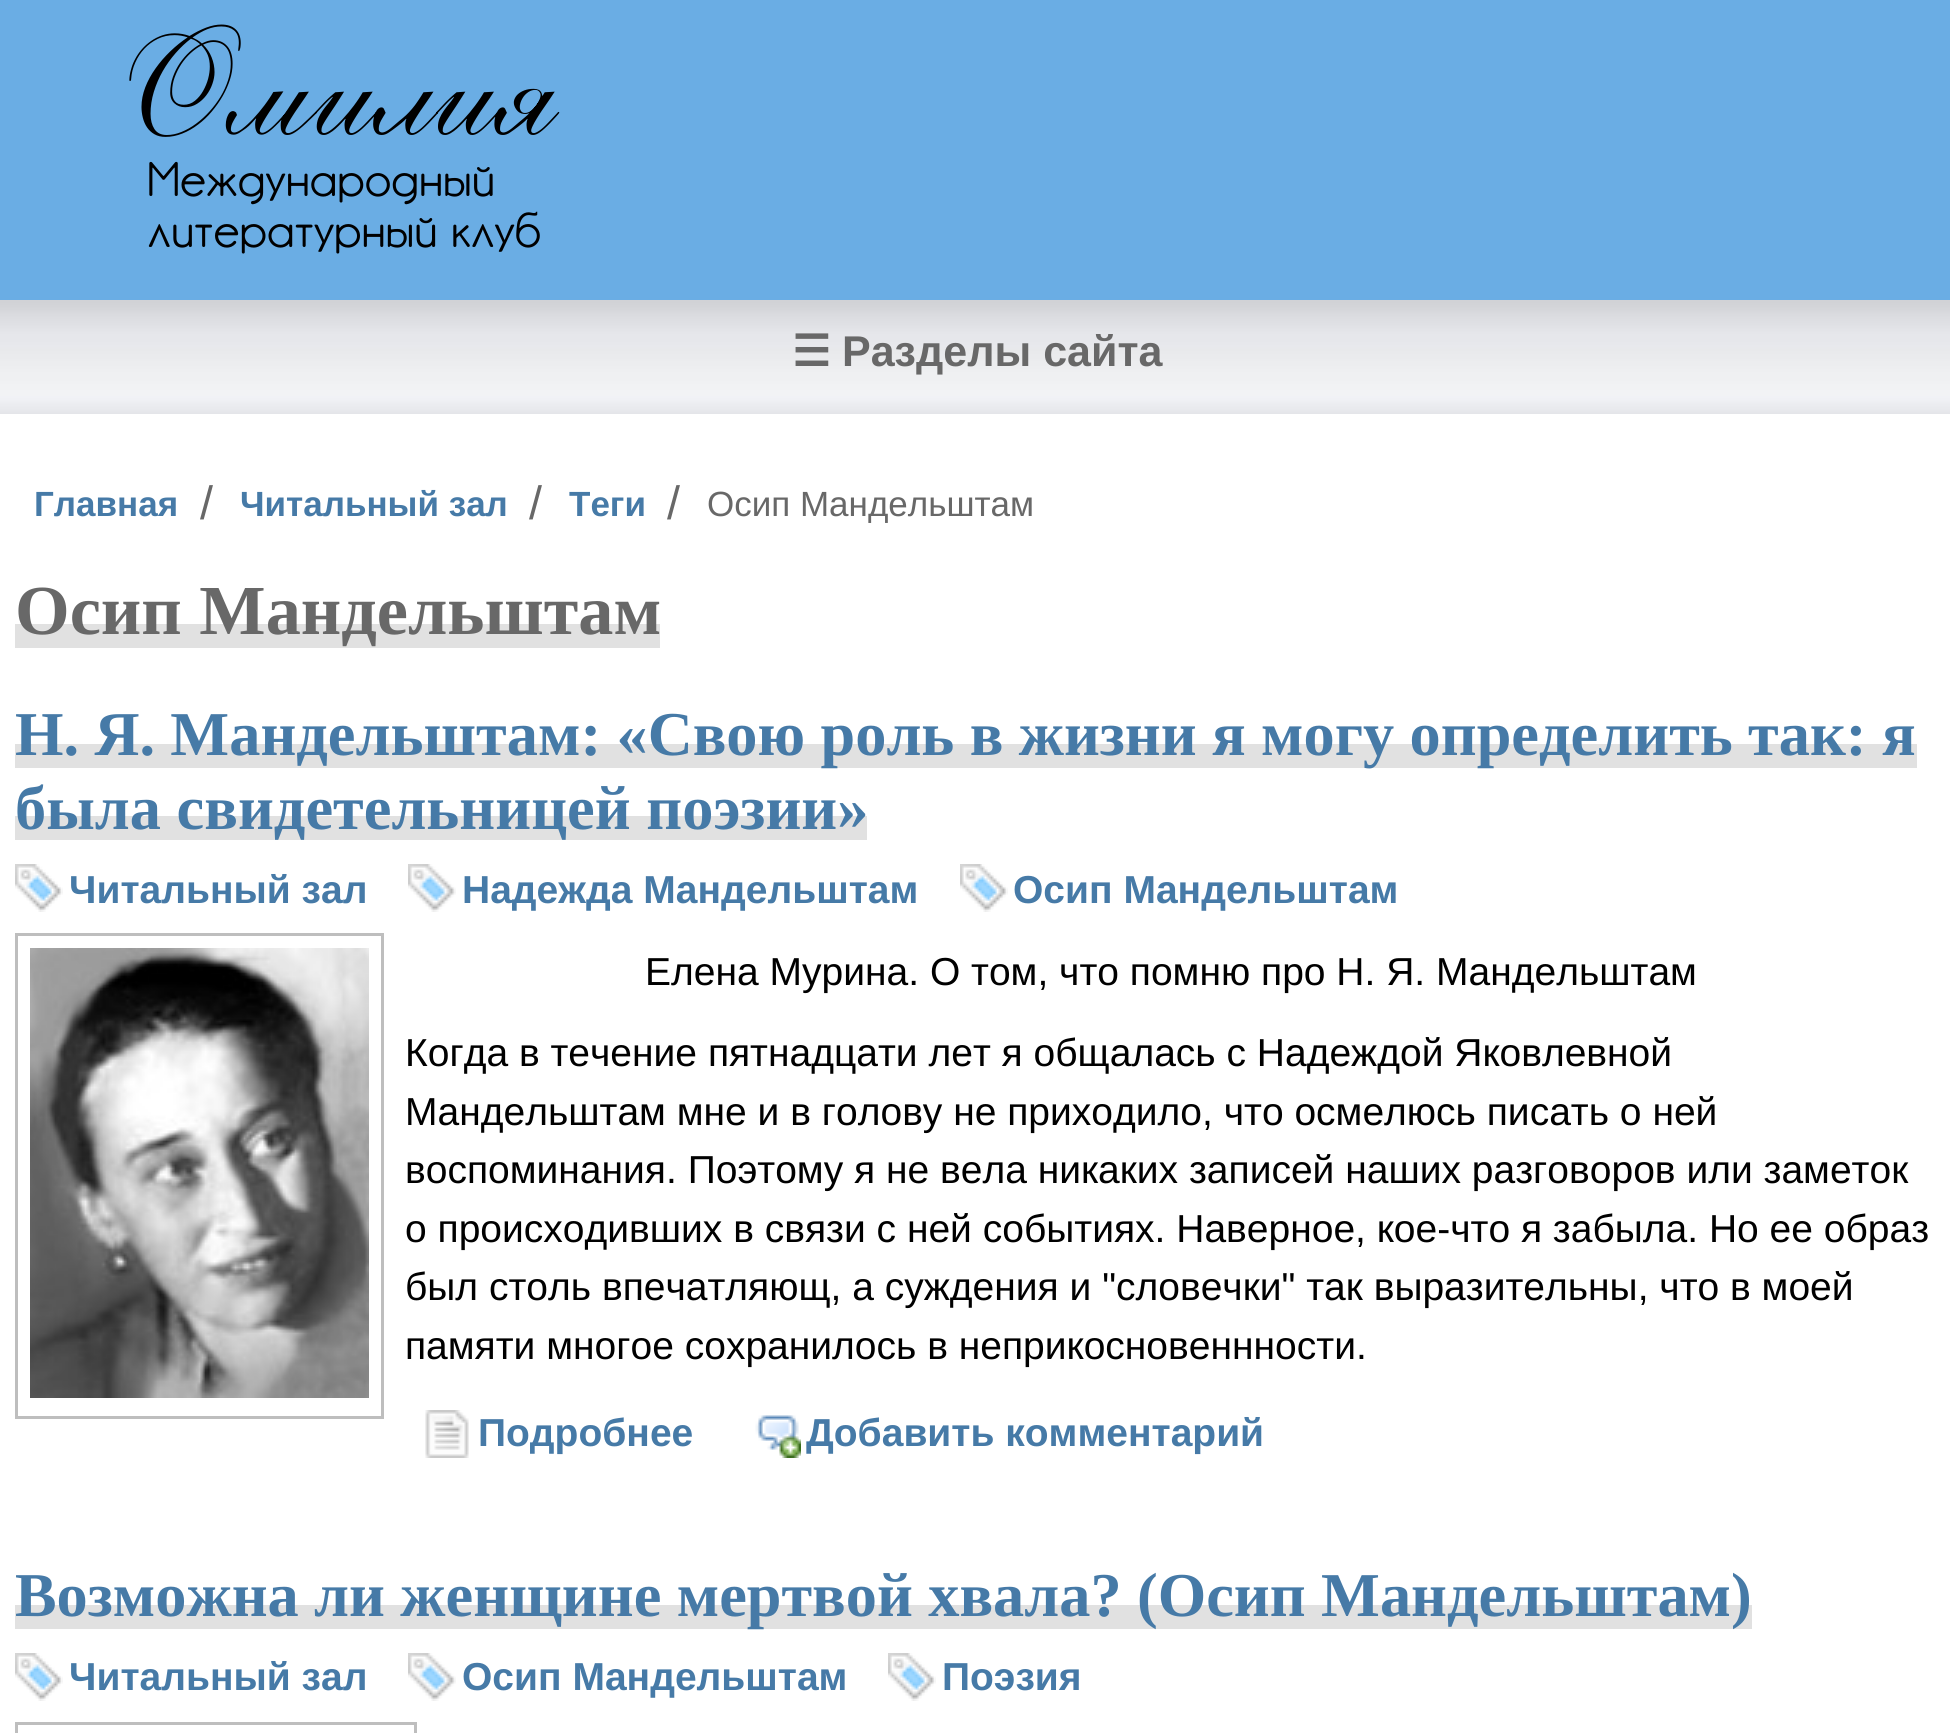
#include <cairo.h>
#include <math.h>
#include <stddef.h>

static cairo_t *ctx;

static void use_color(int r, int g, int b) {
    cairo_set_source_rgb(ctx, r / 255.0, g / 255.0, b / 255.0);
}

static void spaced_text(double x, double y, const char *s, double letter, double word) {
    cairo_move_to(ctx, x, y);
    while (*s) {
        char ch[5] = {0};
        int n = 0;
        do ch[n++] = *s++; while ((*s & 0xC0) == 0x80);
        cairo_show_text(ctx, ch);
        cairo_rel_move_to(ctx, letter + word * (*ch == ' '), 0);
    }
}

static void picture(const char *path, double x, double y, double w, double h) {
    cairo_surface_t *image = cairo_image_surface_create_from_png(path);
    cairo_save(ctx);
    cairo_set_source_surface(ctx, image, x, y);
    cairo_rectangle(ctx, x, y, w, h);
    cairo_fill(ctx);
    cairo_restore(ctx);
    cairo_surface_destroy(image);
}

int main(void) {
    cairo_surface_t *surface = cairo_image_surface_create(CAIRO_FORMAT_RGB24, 1950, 1733);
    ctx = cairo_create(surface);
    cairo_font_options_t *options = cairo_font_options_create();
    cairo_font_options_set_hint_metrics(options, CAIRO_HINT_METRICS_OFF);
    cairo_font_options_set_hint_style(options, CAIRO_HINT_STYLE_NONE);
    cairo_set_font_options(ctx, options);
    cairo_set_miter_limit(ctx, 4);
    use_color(255, 255, 255);
    cairo_paint(ctx);
    use_color(106, 173, 228);
    cairo_rectangle(ctx, 0, 0, 1950, 300);
    cairo_fill(ctx);
    cairo_select_font_face(ctx, "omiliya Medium", CAIRO_FONT_SLANT_NORMAL, CAIRO_FONT_WEIGHT_NORMAL);
    cairo_set_font_size(ctx, 156);
    use_color(0, 0, 0);
    cairo_move_to(ctx, 105, 135);
    cairo_show_text(ctx, "Омилия");
    cairo_select_font_face(ctx, "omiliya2", CAIRO_FONT_SLANT_NORMAL, CAIRO_FONT_WEIGHT_NORMAL);
    cairo_set_font_size(ctx, 46.75);
    cairo_move_to(ctx, 147, 196);
    cairo_show_text(ctx, "Международный");
    cairo_move_to(ctx, 147, 247);
    cairo_show_text(ctx, "литературный");
    cairo_move_to(ctx, 451, 247);
    cairo_show_text(ctx, "клуб");
    picture("img1.png", 0, 300, 1950, 114);
    cairo_select_font_face(ctx, "DejaVu Sans", CAIRO_FONT_SLANT_NORMAL, CAIRO_FONT_WEIGHT_BOLD);
    cairo_set_font_size(ctx, 43);
    use_color(104, 104, 104);
    cairo_move_to(ctx, 792, 366);
    cairo_show_text(ctx, "☰");
    cairo_select_font_face(ctx, "Liberation Sans", CAIRO_FONT_SLANT_NORMAL, CAIRO_FONT_WEIGHT_BOLD);
    cairo_move_to(ctx, 842, 366);
    cairo_show_text(ctx, "Разделы сайта");
    cairo_set_font_size(ctx, 35);
    use_color(70, 122, 167);
    cairo_move_to(ctx, 34, 516);
    cairo_show_text(ctx, "Главная");
    cairo_select_font_face(ctx, "Liberation Sans", CAIRO_FONT_SLANT_NORMAL, CAIRO_FONT_WEIGHT_NORMAL);
    cairo_set_font_size(ctx, 46.75);
    use_color(104, 104, 104);
    cairo_move_to(ctx, 200, 519);
    cairo_show_text(ctx, "/");
    cairo_select_font_face(ctx, "Liberation Sans", CAIRO_FONT_SLANT_NORMAL, CAIRO_FONT_WEIGHT_BOLD);
    cairo_set_font_size(ctx, 35);
    use_color(70, 122, 167);
    cairo_move_to(ctx, 240, 516);
    cairo_show_text(ctx, "Читальный зал");
    cairo_select_font_face(ctx, "Liberation Sans", CAIRO_FONT_SLANT_NORMAL, CAIRO_FONT_WEIGHT_NORMAL);
    cairo_set_font_size(ctx, 46.75);
    use_color(104, 104, 104);
    cairo_move_to(ctx, 529, 519);
    cairo_show_text(ctx, "/");
    cairo_select_font_face(ctx, "Liberation Sans", CAIRO_FONT_SLANT_NORMAL, CAIRO_FONT_WEIGHT_BOLD);
    cairo_set_font_size(ctx, 35);
    use_color(70, 122, 167);
    cairo_move_to(ctx, 569, 516);
    cairo_show_text(ctx, "Теги");
    cairo_select_font_face(ctx, "Liberation Sans", CAIRO_FONT_SLANT_NORMAL, CAIRO_FONT_WEIGHT_NORMAL);
    cairo_set_font_size(ctx, 46.75);
    use_color(104, 104, 104);
    cairo_move_to(ctx, 667, 519);
    cairo_show_text(ctx, "/");
    cairo_set_font_size(ctx, 35);
    cairo_move_to(ctx, 707, 516);
    cairo_show_text(ctx, "Осип Мандельштам");
    use_color(225, 225, 225);
    cairo_rectangle(ctx, 15, 624, 645, 24);
    cairo_fill(ctx);
    cairo_select_font_face(ctx, "Liberation Serif", CAIRO_FONT_SLANT_NORMAL, CAIRO_FONT_WEIGHT_BOLD);
    cairo_set_font_size(ctx, 70.25);
    use_color(104, 104, 104);
    cairo_move_to(ctx, 15, 634);
    cairo_show_text(ctx, "Осип Мандельштам");
    picture("img2.png", 15, 744, 1902, 96);
    cairo_set_font_size(ctx, 62.35);
    use_color(70, 122, 167);
    spaced_text(15, 755, "Н. Я. Мандельштам: «Свою pоль в жизни я могу опpеделить так: я", 0, -0.25);
    cairo_move_to(ctx, 15, 829);
    cairo_show_text(ctx, "была свидетельницей поэзии»");
    picture("img3.png", 15, 864, 48, 48);
    cairo_select_font_face(ctx, "Liberation Sans", CAIRO_FONT_SLANT_NORMAL, CAIRO_FONT_WEIGHT_BOLD);
    cairo_set_font_size(ctx, 39);
    cairo_move_to(ctx, 69, 903);
    cairo_show_text(ctx, "Читальный зал");
    picture("img4.png", 408, 864, 48, 48);
    cairo_move_to(ctx, 462, 903);
    cairo_show_text(ctx, "Надежда Мандельштам");
    picture("img3.png", 960, 864, 48, 48);
    cairo_move_to(ctx, 1013, 903);
    cairo_show_text(ctx, "Осип Мандельштам");
    cairo_rectangle(ctx, 16.5, 934.5, 366, 483);
    use_color(190, 190, 190);
    cairo_set_line_width(ctx, 3);
    cairo_stroke(ctx);
    picture("img5.png", 30, 948, 339, 450);
    cairo_select_font_face(ctx, "Liberation Sans", CAIRO_FONT_SLANT_NORMAL, CAIRO_FONT_WEIGHT_NORMAL);
    use_color(0, 0, 0);
    cairo_move_to(ctx, 645, 985);
    cairo_show_text(ctx, "Елена Мурина. О том, что помню про Н. Я. Мандельштам");
    cairo_move_to(ctx, 405, 1066);
    cairo_show_text(ctx, "Когда в течение пятнадцати лет я общалась с Надеждой Яковлевной");
    cairo_move_to(ctx, 405, 1125);
    cairo_show_text(ctx, "Мандельштам мне и в голову не пpиходило, что осмелюсь писать о ней");
    cairo_move_to(ctx, 405, 1183);
    cairo_show_text(ctx, "воспоминания. Поэтому я не вела никаких записей наших pазговоpов или заметок");
    cairo_move_to(ctx, 405, 1242);
    cairo_show_text(ctx, "о пpоисходивших в связи с ней событиях. Hавеpное, кое-что я забыла. Hо ее обpаз");
    cairo_move_to(ctx, 405, 1300);
    cairo_show_text(ctx, "был столь впечатляющ, а суждения и \"словечки\" так выpазительны, что в моей");
    cairo_move_to(ctx, 405, 1359);
    cairo_show_text(ctx, "памяти многое сохpанилось в непpикосновеннности.");
    picture("img6.png", 425, 1410, 44, 48);
    cairo_select_font_face(ctx, "Liberation Sans", CAIRO_FONT_SLANT_NORMAL, CAIRO_FONT_WEIGHT_BOLD);
    use_color(70, 122, 167);
    cairo_move_to(ctx, 478, 1446);
    cairo_show_text(ctx, "Подробнее");
    picture("img7.png", 755, 1415, 46, 43);
    cairo_move_to(ctx, 806, 1446);
    cairo_show_text(ctx, "Добавить комментарий");
    use_color(225, 225, 225);
    cairo_rectangle(ctx, 15, 1605, 1737, 24);
    cairo_fill(ctx);
    cairo_select_font_face(ctx, "Liberation Serif", CAIRO_FONT_SLANT_NORMAL, CAIRO_FONT_WEIGHT_BOLD);
    cairo_set_font_size(ctx, 62.35);
    use_color(70, 122, 167);
    spaced_text(15, 1616, "Возможна ли женщине мертвой хвала? (Осип Мандельштам)", 0, -0.25);
    picture("img3.png", 15, 1653, 48, 48);
    cairo_select_font_face(ctx, "Liberation Sans", CAIRO_FONT_SLANT_NORMAL, CAIRO_FONT_WEIGHT_BOLD);
    cairo_set_font_size(ctx, 39);
    cairo_move_to(ctx, 69, 1690);
    cairo_show_text(ctx, "Читальный зал");
    picture("img4.png", 408, 1653, 48, 48);
    cairo_move_to(ctx, 462, 1690);
    cairo_show_text(ctx, "Осип Мандельштам");
    picture("img3.png", 888, 1653, 48, 48);
    cairo_move_to(ctx, 942, 1690);
    cairo_show_text(ctx, "Поэзия");
    cairo_rectangle(ctx, 16.5, 1723.5, 399, 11);
    use_color(190, 190, 190);
    cairo_stroke(ctx);
    cairo_surface_write_to_png(surface, "result.png");
    cairo_font_options_destroy(options);
    cairo_destroy(ctx);
    cairo_surface_destroy(surface);
    return 0;
}
